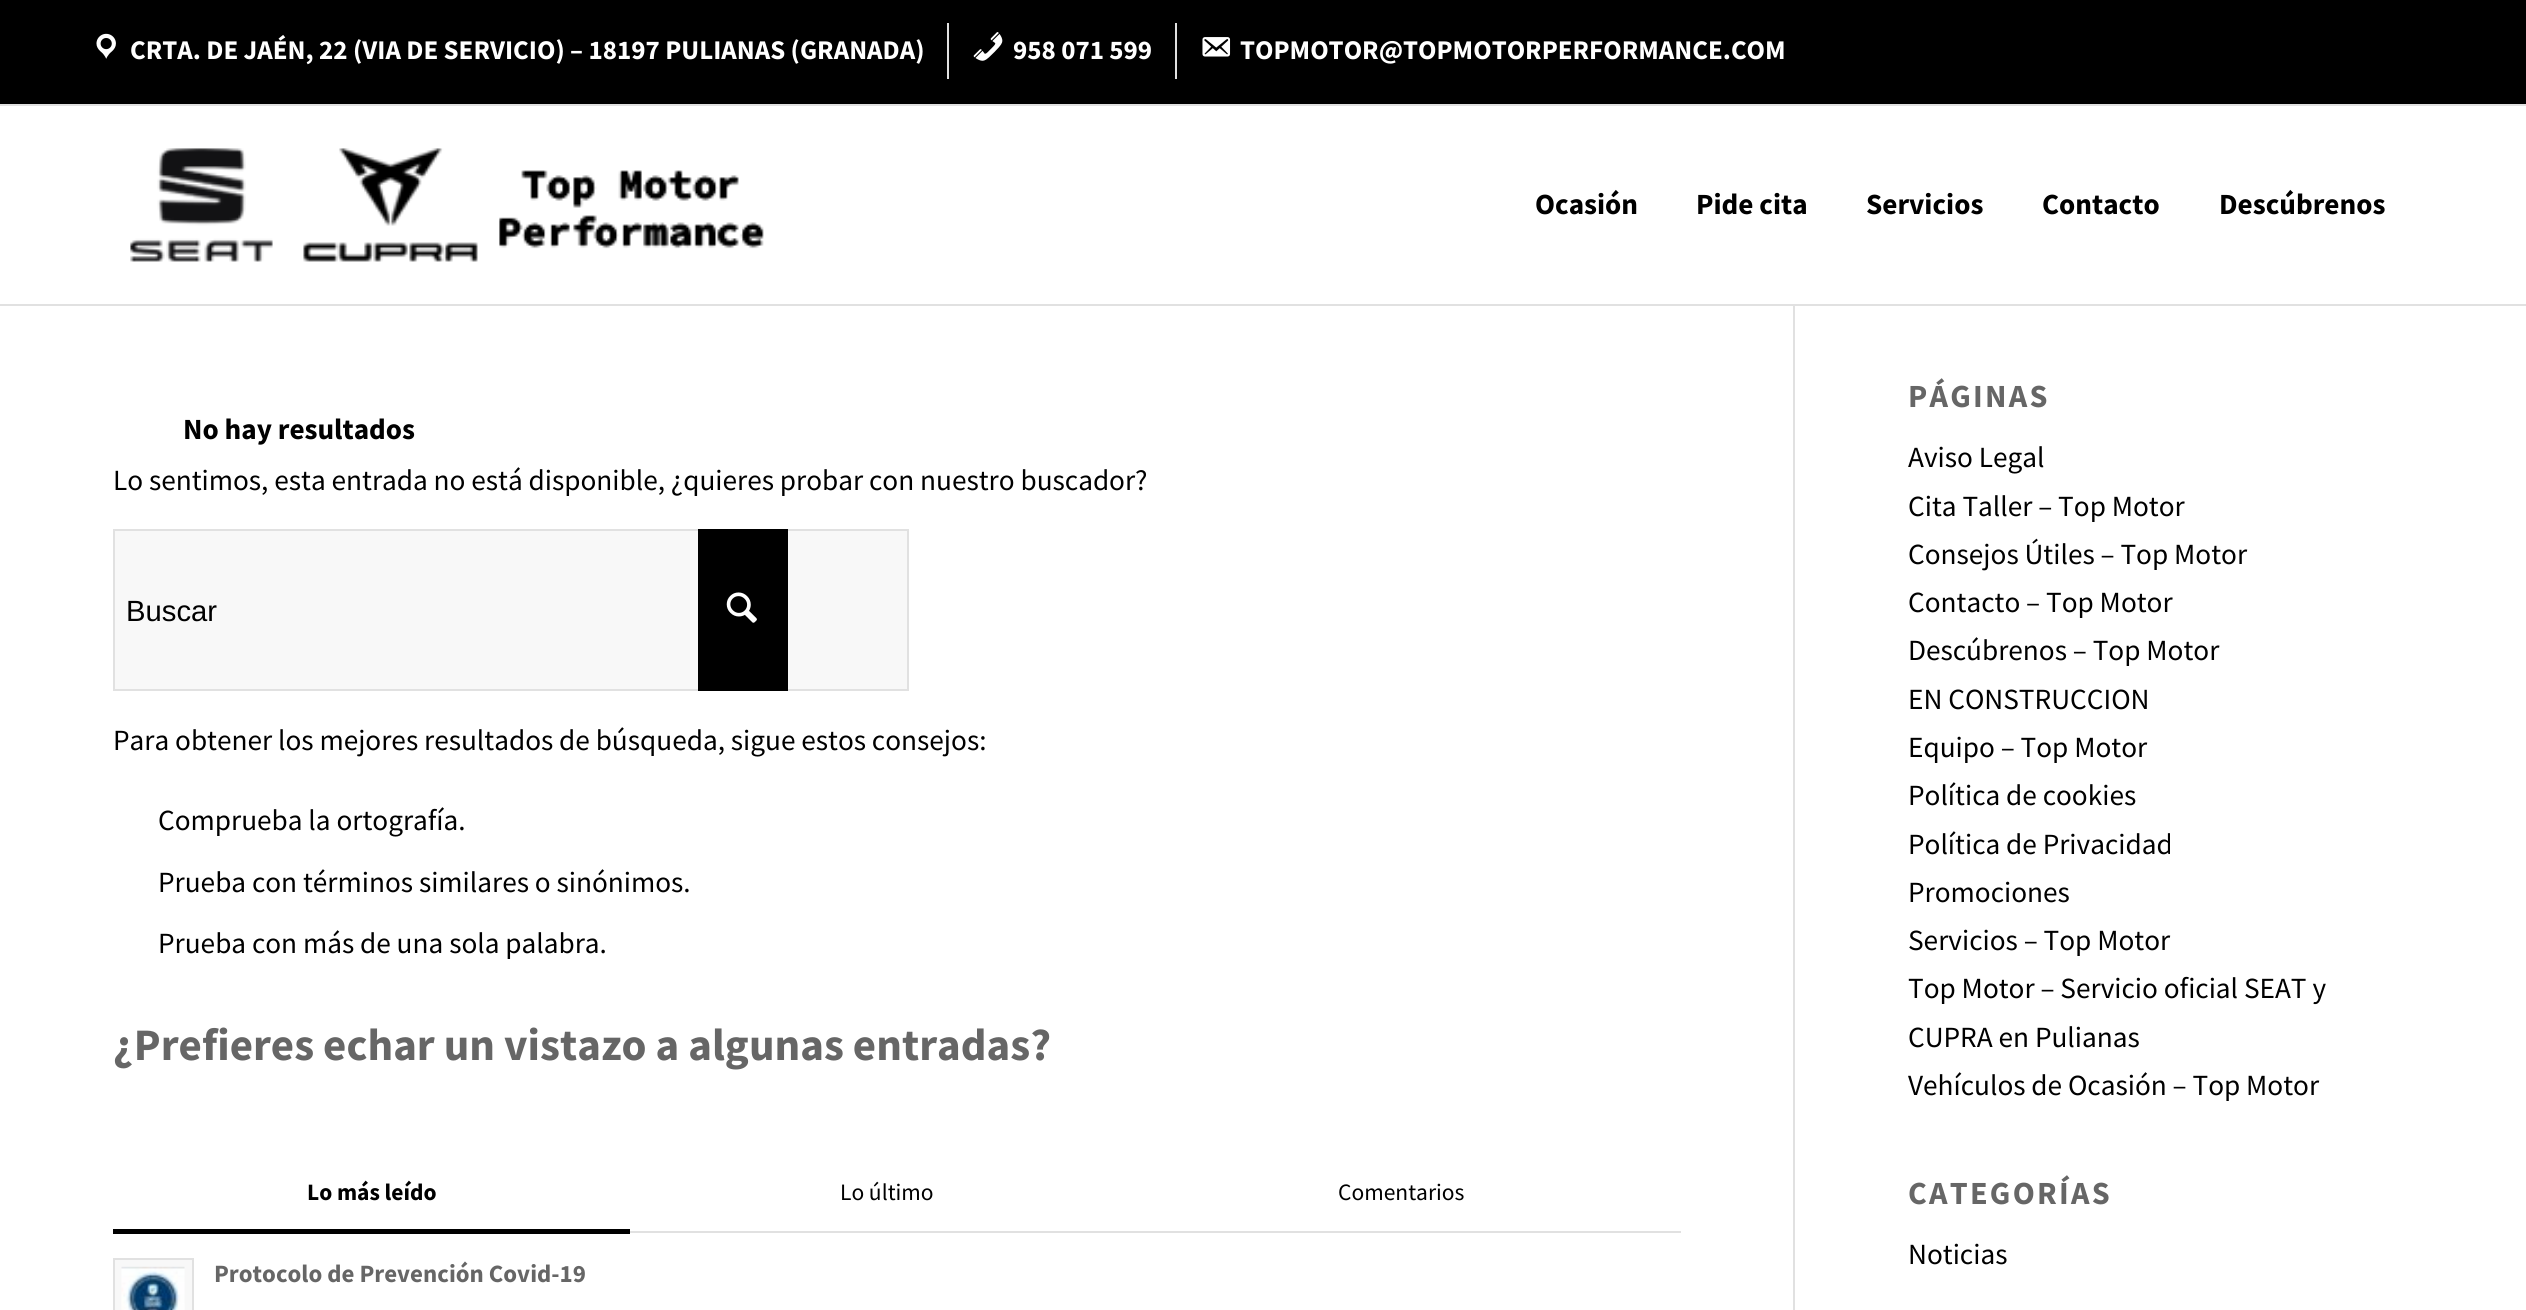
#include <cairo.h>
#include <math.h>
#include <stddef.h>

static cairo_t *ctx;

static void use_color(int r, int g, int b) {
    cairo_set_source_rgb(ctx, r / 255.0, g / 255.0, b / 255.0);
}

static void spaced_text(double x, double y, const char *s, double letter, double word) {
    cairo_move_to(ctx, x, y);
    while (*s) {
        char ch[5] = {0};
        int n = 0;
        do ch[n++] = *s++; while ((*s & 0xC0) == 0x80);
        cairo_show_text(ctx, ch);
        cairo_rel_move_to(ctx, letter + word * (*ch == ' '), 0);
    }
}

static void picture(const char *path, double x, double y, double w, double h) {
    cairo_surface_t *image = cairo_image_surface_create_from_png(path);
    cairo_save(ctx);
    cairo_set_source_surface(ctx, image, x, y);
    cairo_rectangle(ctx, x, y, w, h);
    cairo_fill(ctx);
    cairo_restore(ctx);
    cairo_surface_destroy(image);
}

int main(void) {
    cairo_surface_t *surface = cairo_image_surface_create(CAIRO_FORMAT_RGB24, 2526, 1310);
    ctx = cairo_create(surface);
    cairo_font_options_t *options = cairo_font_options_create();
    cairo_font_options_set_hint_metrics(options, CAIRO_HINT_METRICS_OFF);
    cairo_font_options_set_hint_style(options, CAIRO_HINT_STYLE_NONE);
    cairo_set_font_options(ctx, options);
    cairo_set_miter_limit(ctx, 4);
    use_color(255, 255, 255);
    cairo_paint(ctx);
    use_color(0, 0, 0);
    cairo_rectangle(ctx, 0, 0, 2526, 104);
    cairo_fill(ctx);
    use_color(225, 225, 225);
    cairo_rectangle(ctx, 0, 104, 2526, 2);
    cairo_fill(ctx);
    cairo_rectangle(ctx, 947, 23, 2, 56);
    cairo_fill(ctx);
    picture("img1.png", 96, 33, 20, 26);
    cairo_select_font_face(ctx, "Source Sans Pro", CAIRO_FONT_SLANT_NORMAL, CAIRO_FONT_WEIGHT_BOLD);
    cairo_set_font_size(ctx, 27);
    use_color(255, 255, 255);
    cairo_move_to(ctx, 130, 59);
    cairo_show_text(ctx, "CRTA. DE JAÉN, 22 (VIA DE SERVICIO) – 18197 PULIANAS (GRANADA)");
    use_color(225, 225, 225);
    cairo_rectangle(ctx, 1175, 23, 2, 56);
    cairo_fill(ctx);
    picture("img2.png", 973, 32, 30, 29);
    use_color(255, 255, 255);
    cairo_move_to(ctx, 1013, 59);
    cairo_show_text(ctx, "958 071 599");
    picture("img3.png", 1202, 37, 29, 20);
    cairo_move_to(ctx, 1240, 59);
    cairo_show_text(ctx, "TOPMOTOR@TOPMOTORPERFORMANCE.COM");
    use_color(225, 225, 225);
    cairo_rectangle(ctx, 0, 304, 2526, 2);
    cairo_fill(ctx);
    picture("img4.png", 130, 148, 634, 114);
    cairo_set_font_size(ctx, 29.25);
    use_color(0, 0, 0);
    cairo_move_to(ctx, 1535, 214);
    cairo_show_text(ctx, "Ocasión");
    cairo_move_to(ctx, 1696, 214);
    cairo_show_text(ctx, "Pide cita");
    cairo_move_to(ctx, 1866, 214);
    cairo_show_text(ctx, "Servicios");
    cairo_move_to(ctx, 2042, 214);
    cairo_show_text(ctx, "Contacto");
    cairo_move_to(ctx, 2219, 214);
    cairo_show_text(ctx, "Descúbrenos");
    use_color(225, 225, 225);
    cairo_rectangle(ctx, 1793, 306, 2, 1004);
    cairo_fill(ctx);
    use_color(0, 0, 0);
    cairo_move_to(ctx, 183, 439);
    cairo_show_text(ctx, "No hay resultados");
    cairo_select_font_face(ctx, "Source Sans Pro", CAIRO_FONT_SLANT_NORMAL, CAIRO_FONT_WEIGHT_NORMAL);
    cairo_move_to(ctx, 113, 490);
    cairo_show_text(ctx, "Lo sentimos, esta entrada no está disponible, ¿quieres probar con nuestro buscador?");
    use_color(248, 248, 248);
    cairo_rectangle(ctx, 114, 530, 794, 160);
    cairo_fill_preserve(ctx);
    use_color(225, 225, 225);
    cairo_stroke(ctx);
    cairo_select_font_face(ctx, "Liberation Sans", CAIRO_FONT_SLANT_NORMAL, CAIRO_FONT_WEIGHT_NORMAL);
    use_color(0, 0, 0);
    cairo_move_to(ctx, 126, 621);
    cairo_show_text(ctx, "Buscar");
    cairo_rectangle(ctx, 698, 529, 90, 162);
    cairo_fill(ctx);
    picture("img5.png", 726, 592, 31, 31);
    cairo_select_font_face(ctx, "Source Sans Pro", CAIRO_FONT_SLANT_NORMAL, CAIRO_FONT_WEIGHT_NORMAL);
    cairo_move_to(ctx, 113, 750);
    cairo_show_text(ctx, "Para obtener los mejores resultados de búsqueda, sigue estos consejos:");
    cairo_move_to(ctx, 158, 830);
    cairo_show_text(ctx, "Comprueba la ortografía.");
    cairo_move_to(ctx, 158, 892);
    cairo_show_text(ctx, "Prueba con términos similares o sinónimos.");
    cairo_move_to(ctx, 158, 953);
    cairo_show_text(ctx, "Prueba con más de una sola palabra.");
    cairo_select_font_face(ctx, "Source Sans Pro", CAIRO_FONT_SLANT_NORMAL, CAIRO_FONT_WEIGHT_BOLD);
    cairo_set_font_size(ctx, 45);
    use_color(102, 102, 102);
    cairo_move_to(ctx, 113, 1060);
    cairo_show_text(ctx, "¿Prefieres echar un vistazo a algunas entradas?");
    use_color(225, 225, 225);
    cairo_rectangle(ctx, 630, 1231, 1051, 2);
    cairo_fill(ctx);
    use_color(0, 0, 0);
    cairo_rectangle(ctx, 113, 1229, 517, 5);
    cairo_fill(ctx);
    cairo_set_font_size(ctx, 23.5);
    cairo_move_to(ctx, 307, 1200);
    cairo_show_text(ctx, "Lo más leído");
    cairo_select_font_face(ctx, "Source Sans Pro", CAIRO_FONT_SLANT_NORMAL, CAIRO_FONT_WEIGHT_NORMAL);
    cairo_move_to(ctx, 840, 1200);
    cairo_show_text(ctx, "Lo último");
    cairo_move_to(ctx, 1338, 1200);
    cairo_show_text(ctx, "Comentarios");
    use_color(248, 248, 248);
    cairo_rectangle(ctx, 114, 1259, 79, 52);
    cairo_fill_preserve(ctx);
    use_color(225, 225, 225);
    cairo_stroke(ctx);
    picture("img6.png", 121, 1266, 64, 44);
    cairo_select_font_face(ctx, "Source Sans Pro", CAIRO_FONT_SLANT_NORMAL, CAIRO_FONT_WEIGHT_BOLD);
    cairo_set_font_size(ctx, 24.9);
    use_color(102, 102, 102);
    cairo_move_to(ctx, 214, 1282);
    cairo_show_text(ctx, "Protocolo de Prevención Covid-19");
    cairo_set_font_size(ctx, 32.25);
    spaced_text(1908, 407, "PÁGINAS", 2.25, 0);
    cairo_select_font_face(ctx, "Source Sans Pro", CAIRO_FONT_SLANT_NORMAL, CAIRO_FONT_WEIGHT_NORMAL);
    cairo_set_font_size(ctx, 29.25);
    use_color(0, 0, 0);
    cairo_move_to(ctx, 1908, 467);
    cairo_show_text(ctx, "Aviso Legal");
    cairo_move_to(ctx, 1908, 516);
    cairo_show_text(ctx, "Cita Taller – Top Motor");
    cairo_move_to(ctx, 1908, 564);
    cairo_show_text(ctx, "Consejos Útiles – Top Motor");
    cairo_move_to(ctx, 1908, 612);
    cairo_show_text(ctx, "Contacto – Top Motor");
    cairo_move_to(ctx, 1908, 660);
    cairo_show_text(ctx, "Descúbrenos – Top Motor");
    cairo_move_to(ctx, 1908, 709);
    cairo_show_text(ctx, "EN CONSTRUCCION");
    cairo_move_to(ctx, 1908, 757);
    cairo_show_text(ctx, "Equipo – Top Motor");
    cairo_move_to(ctx, 1908, 805);
    cairo_show_text(ctx, "Política de cookies");
    cairo_move_to(ctx, 1908, 854);
    cairo_show_text(ctx, "Política de Privacidad");
    cairo_move_to(ctx, 1908, 902);
    cairo_show_text(ctx, "Promociones");
    cairo_move_to(ctx, 1908, 950);
    cairo_show_text(ctx, "Servicios – Top Motor");
    cairo_move_to(ctx, 1908, 998);
    cairo_show_text(ctx, "Top Motor – Servicio oficial SEAT y");
    cairo_move_to(ctx, 1908, 1047);
    cairo_show_text(ctx, "CUPRA en Pulianas");
    cairo_move_to(ctx, 1908, 1095);
    cairo_show_text(ctx, "Vehículos de Ocasión – Top Motor");
    cairo_select_font_face(ctx, "Source Sans Pro", CAIRO_FONT_SLANT_NORMAL, CAIRO_FONT_WEIGHT_BOLD);
    cairo_set_font_size(ctx, 32.25);
    use_color(102, 102, 102);
    spaced_text(1908, 1204, "CATEGORÍAS", 2.25, 0);
    cairo_select_font_face(ctx, "Source Sans Pro", CAIRO_FONT_SLANT_NORMAL, CAIRO_FONT_WEIGHT_NORMAL);
    cairo_set_font_size(ctx, 29.25);
    use_color(0, 0, 0);
    cairo_move_to(ctx, 1908, 1264);
    cairo_show_text(ctx, "Noticias");
    cairo_surface_write_to_png(surface, "result.png");
    cairo_font_options_destroy(options);
    cairo_destroy(ctx);
    cairo_surface_destroy(surface);
    return 0;
}
